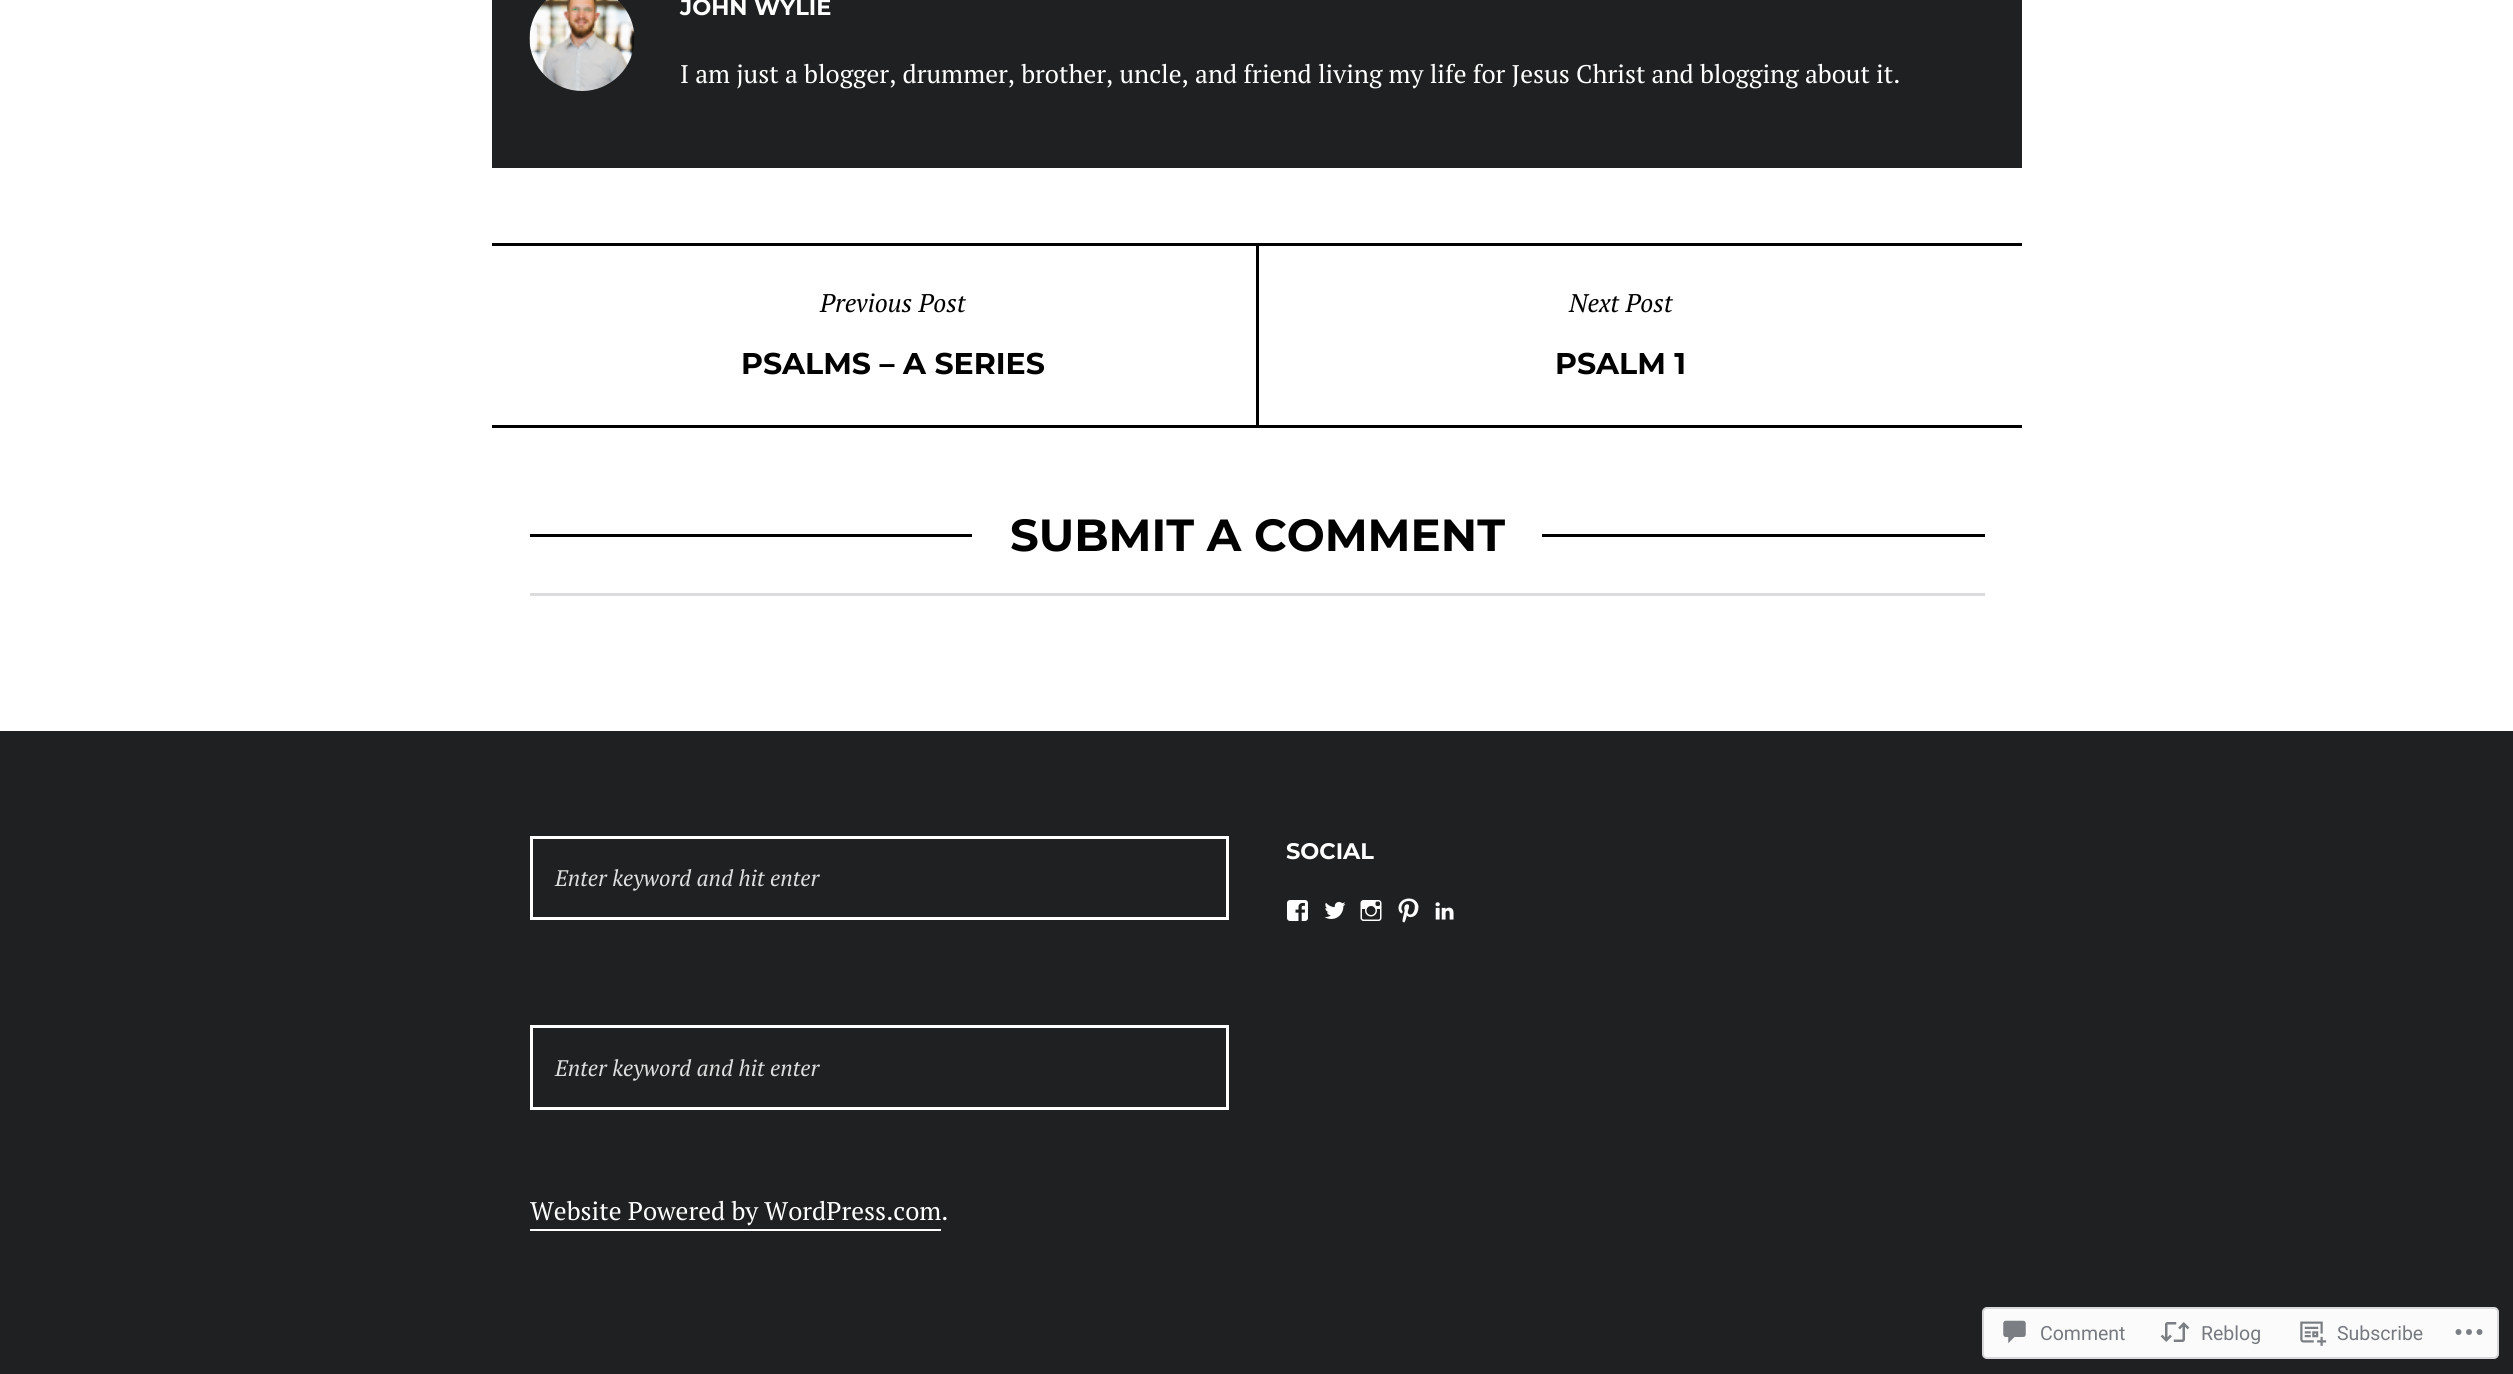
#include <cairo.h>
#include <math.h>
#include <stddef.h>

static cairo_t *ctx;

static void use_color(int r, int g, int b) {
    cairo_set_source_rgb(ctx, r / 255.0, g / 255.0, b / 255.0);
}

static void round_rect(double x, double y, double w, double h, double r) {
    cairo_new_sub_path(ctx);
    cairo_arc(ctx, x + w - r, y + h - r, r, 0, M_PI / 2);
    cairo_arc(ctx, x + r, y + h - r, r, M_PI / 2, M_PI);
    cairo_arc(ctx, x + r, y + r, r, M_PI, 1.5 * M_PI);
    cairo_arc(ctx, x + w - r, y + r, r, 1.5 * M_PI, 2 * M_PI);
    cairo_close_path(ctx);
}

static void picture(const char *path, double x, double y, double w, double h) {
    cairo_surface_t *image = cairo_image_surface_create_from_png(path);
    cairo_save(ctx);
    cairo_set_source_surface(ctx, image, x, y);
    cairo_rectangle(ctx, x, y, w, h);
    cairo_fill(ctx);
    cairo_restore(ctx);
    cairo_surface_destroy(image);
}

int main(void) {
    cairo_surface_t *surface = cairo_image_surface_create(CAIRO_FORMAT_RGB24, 2513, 1374);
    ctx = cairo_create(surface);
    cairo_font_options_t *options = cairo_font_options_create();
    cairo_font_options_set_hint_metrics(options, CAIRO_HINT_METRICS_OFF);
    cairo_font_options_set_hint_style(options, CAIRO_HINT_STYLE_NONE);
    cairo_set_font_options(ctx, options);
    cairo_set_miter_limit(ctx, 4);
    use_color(255, 255, 255);
    cairo_paint(ctx);
    use_color(31, 32, 33);
    cairo_rectangle(ctx, 492, 0, 1530, 168);
    cairo_fill(ctx);
    picture("img1.png", 529, 0, 106, 91);
    cairo_select_font_face(ctx, "Montserrat", CAIRO_FONT_SLANT_NORMAL, CAIRO_FONT_WEIGHT_BOLD);
    cairo_set_font_size(ctx, 22.5);
    use_color(255, 255, 255);
    cairo_move_to(ctx, 680, 15);
    cairo_show_text(ctx, "JOHN WYLIE");
    cairo_select_font_face(ctx, "PT Serif", CAIRO_FONT_SLANT_NORMAL, CAIRO_FONT_WEIGHT_NORMAL);
    cairo_set_font_size(ctx, 25.5);
    cairo_move_to(ctx, 680, 83);
    cairo_show_text(ctx, "I am just a blogger, drummer, brother, uncle, and friend living my life for Jesus Christ and blogging about it.");
    use_color(0, 0, 0);
    cairo_rectangle(ctx, 492, 243, 1530, 3);
    cairo_fill(ctx);
    cairo_rectangle(ctx, 492, 425, 1530, 3);
    cairo_fill(ctx);
    cairo_select_font_face(ctx, "PT Serif", CAIRO_FONT_SLANT_ITALIC, CAIRO_FONT_WEIGHT_NORMAL);
    cairo_move_to(ctx, 820, 312);
    cairo_show_text(ctx, "Previous Post");
    cairo_select_font_face(ctx, "Montserrat", CAIRO_FONT_SLANT_NORMAL, CAIRO_FONT_WEIGHT_BOLD);
    cairo_set_font_size(ctx, 30);
    cairo_move_to(ctx, 741, 374);
    cairo_show_text(ctx, "PSALMS – A SERIES");
    cairo_rectangle(ctx, 1256, 246, 3, 179);
    cairo_fill(ctx);
    cairo_select_font_face(ctx, "PT Serif", CAIRO_FONT_SLANT_ITALIC, CAIRO_FONT_WEIGHT_NORMAL);
    cairo_set_font_size(ctx, 25.5);
    cairo_move_to(ctx, 1569, 312);
    cairo_show_text(ctx, "Next Post");
    cairo_select_font_face(ctx, "Montserrat", CAIRO_FONT_SLANT_NORMAL, CAIRO_FONT_WEIGHT_BOLD);
    cairo_set_font_size(ctx, 30);
    cairo_move_to(ctx, 1555, 374);
    cairo_show_text(ctx, "PSALM 1");
    cairo_rectangle(ctx, 530, 534, 1455, 3);
    cairo_fill(ctx);
    use_color(255, 255, 255);
    cairo_rectangle(ctx, 972, 534, 570, 3);
    cairo_fill(ctx);
    cairo_set_font_size(ctx, 45);
    use_color(0, 0, 0);
    cairo_move_to(ctx, 1010, 551);
    cairo_show_text(ctx, "SUBMIT A COMMENT");
    use_color(220, 220, 222);
    cairo_rectangle(ctx, 530, 593, 1455, 3);
    cairo_fill(ctx);
    use_color(31, 32, 33);
    cairo_rectangle(ctx, 0, 731, 2513, 643);
    cairo_fill(ctx);
    cairo_set_font_size(ctx, 22.5);
    use_color(255, 255, 255);
    cairo_move_to(ctx, 1286, 859);
    cairo_show_text(ctx, "SOCIAL");
    picture("img2.png", 1287, 900, 21, 21);
    picture("img3.png", 1324, 901, 22, 18);
    picture("img4.png", 1360, 900, 22, 21);
    picture("img5.png", 1398, 898, 21, 25);
    picture("img6.png", 1435, 902, 19, 18);
    cairo_rectangle(ctx, 531.5, 837.5, 696, 81);
    cairo_set_line_width(ctx, 3);
    cairo_stroke(ctx);
    cairo_select_font_face(ctx, "PT Serif", CAIRO_FONT_SLANT_ITALIC, CAIRO_FONT_WEIGHT_NORMAL);
    use_color(221, 222, 222);
    cairo_move_to(ctx, 555, 886);
    cairo_show_text(ctx, "Enter keyword and hit enter");
    cairo_rectangle(ctx, 531.5, 1026.5, 696, 82);
    use_color(255, 255, 255);
    cairo_stroke(ctx);
    use_color(221, 222, 222);
    cairo_move_to(ctx, 555, 1076);
    cairo_show_text(ctx, "Enter keyword and hit enter");
    cairo_select_font_face(ctx, "PT Serif", CAIRO_FONT_SLANT_NORMAL, CAIRO_FONT_WEIGHT_NORMAL);
    cairo_set_font_size(ctx, 25.5);
    use_color(255, 255, 255);
    cairo_move_to(ctx, 530, 1220);
    cairo_show_text(ctx, "Website Powered by WordPress.com.");
    cairo_rectangle(ctx, 530, 1229, 411, 2);
    cairo_fill(ctx);
    use_color(251, 251, 251);
    round_rect(1983, 1308, 515, 50, 4);
    cairo_fill_preserve(ctx);
    use_color(216, 216, 218);
    cairo_set_line_width(ctx, 2);
    cairo_stroke(ctx);
    picture("img7.png", 2003, 1320, 23, 24);
    cairo_select_font_face(ctx, "Roboto", CAIRO_FONT_SLANT_NORMAL, CAIRO_FONT_WEIGHT_NORMAL);
    cairo_set_font_size(ctx, 19.5);
    use_color(118, 122, 128);
    cairo_move_to(ctx, 2040, 1340);
    cairo_show_text(ctx, "Comment");
    picture("img8.png", 2160, 1322, 30, 20);
    cairo_move_to(ctx, 2201, 1340);
    cairo_show_text(ctx, "Reblog");
    picture("img9.png", 2300, 1321, 27, 25);
    cairo_move_to(ctx, 2337, 1340);
    cairo_show_text(ctx, "Subscribe");
    picture("img10.png", 2455, 1329, 28, 6);
    cairo_surface_write_to_png(surface, "result.png");
    cairo_font_options_destroy(options);
    cairo_destroy(ctx);
    cairo_surface_destroy(surface);
    return 0;
}
